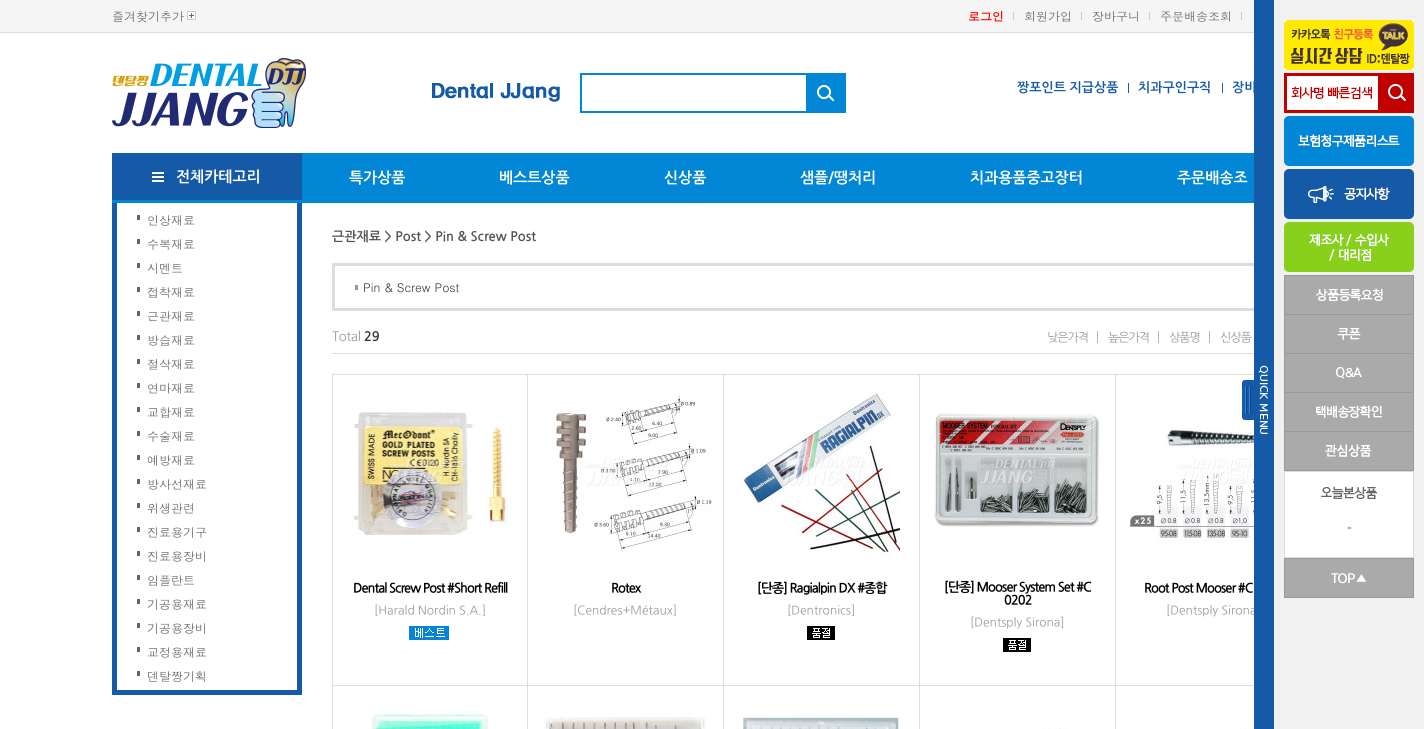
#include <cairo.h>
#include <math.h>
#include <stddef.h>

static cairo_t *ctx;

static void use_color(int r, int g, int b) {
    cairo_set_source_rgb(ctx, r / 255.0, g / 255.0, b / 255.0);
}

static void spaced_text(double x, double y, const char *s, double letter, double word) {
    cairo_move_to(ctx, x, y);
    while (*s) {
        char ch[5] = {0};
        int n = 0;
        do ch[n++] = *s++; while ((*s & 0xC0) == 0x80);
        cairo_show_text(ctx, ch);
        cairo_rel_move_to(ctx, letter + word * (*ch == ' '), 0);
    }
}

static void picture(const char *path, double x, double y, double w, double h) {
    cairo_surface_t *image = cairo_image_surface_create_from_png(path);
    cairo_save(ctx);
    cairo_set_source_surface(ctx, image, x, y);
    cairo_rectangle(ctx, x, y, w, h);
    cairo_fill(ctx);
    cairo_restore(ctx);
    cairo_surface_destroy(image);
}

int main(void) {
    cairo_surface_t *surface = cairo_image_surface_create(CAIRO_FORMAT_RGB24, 1424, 729);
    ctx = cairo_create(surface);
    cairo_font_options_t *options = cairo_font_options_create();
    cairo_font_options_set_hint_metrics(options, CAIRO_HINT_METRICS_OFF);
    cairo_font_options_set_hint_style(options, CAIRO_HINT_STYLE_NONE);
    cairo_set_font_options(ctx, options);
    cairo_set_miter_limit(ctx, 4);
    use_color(255, 255, 255);
    cairo_paint(ctx);
    use_color(21, 90, 166);
    cairo_rectangle(ctx, 297, 200, 5, 495);
    cairo_fill(ctx);
    cairo_rectangle(ctx, 112, 690, 190, 5);
    cairo_fill(ctx);
    cairo_rectangle(ctx, 112, 200, 5, 495);
    cairo_fill(ctx);
    use_color(255, 255, 255);
    cairo_rectangle(ctx, 112, 200, 190, 3);
    cairo_fill(ctx);
    use_color(245, 245, 245);
    cairo_rectangle(ctx, 0, 0, 1254, 32);
    cairo_fill(ctx);
    use_color(221, 221, 221);
    cairo_rectangle(ctx, 0, 32, 1254, 1);
    cairo_fill(ctx);
    picture("img1.png", 187, 11, 9, 9);
    cairo_select_font_face(ctx, "Dotum", CAIRO_FONT_SLANT_NORMAL, CAIRO_FONT_WEIGHT_NORMAL);
    cairo_set_font_size(ctx, 12);
    use_color(102, 102, 102);
    cairo_move_to(ctx, 112, 21);
    cairo_show_text(ctx, "즐겨찾기추가");
    use_color(204, 204, 204);
    cairo_rectangle(ctx, 1013, 12, 1, 8);
    cairo_fill(ctx);
    cairo_select_font_face(ctx, "Dotum", CAIRO_FONT_SLANT_NORMAL, CAIRO_FONT_WEIGHT_BOLD);
    use_color(255, 0, 0);
    cairo_move_to(ctx, 968, 21);
    cairo_show_text(ctx, "로그인");
    use_color(204, 204, 204);
    cairo_rectangle(ctx, 1081, 12, 1, 8);
    cairo_fill(ctx);
    cairo_select_font_face(ctx, "Dotum", CAIRO_FONT_SLANT_NORMAL, CAIRO_FONT_WEIGHT_NORMAL);
    use_color(102, 102, 102);
    cairo_move_to(ctx, 1024, 21);
    cairo_show_text(ctx, "회원가입");
    use_color(204, 204, 204);
    cairo_rectangle(ctx, 1149, 12, 1, 8);
    cairo_fill(ctx);
    use_color(102, 102, 102);
    cairo_move_to(ctx, 1092, 21);
    cairo_show_text(ctx, "장바구니");
    use_color(204, 204, 204);
    cairo_rectangle(ctx, 1241, 12, 1, 8);
    cairo_fill(ctx);
    use_color(102, 102, 102);
    cairo_move_to(ctx, 1160, 21);
    cairo_show_text(ctx, "주문배송조회");
    picture("img2.png", 112, 58, 194, 70);
    picture("img3.png", 432, 83, 128, 19);
    cairo_rectangle(ctx, 581, 74, 264, 38);
    use_color(1, 135, 213);
    cairo_stroke(ctx);
    cairo_rectangle(ctx, 806, 75, 38, 36);
    cairo_fill(ctx);
    picture("img4.png", 817, 85, 18, 17);
    cairo_select_font_face(ctx, "NanumGothic", CAIRO_FONT_SLANT_NORMAL, CAIRO_FONT_WEIGHT_BOLD);
    cairo_set_font_size(ctx, 13);
    use_color(21, 90, 166);
    cairo_move_to(ctx, 1017, 92);
    cairo_show_text(ctx, "짱포인트 지급상품");
    cairo_rectangle(ctx, 1128, 83, 1, 10);
    cairo_fill(ctx);
    cairo_move_to(ctx, 1138, 92);
    cairo_show_text(ctx, "치과구인구직");
    cairo_rectangle(ctx, 1222, 83, 1, 10);
    cairo_fill(ctx);
    cairo_move_to(ctx, 1232, 92);
    cairo_show_text(ctx, "장비");
    use_color(1, 135, 213);
    cairo_rectangle(ctx, 112, 153, 1142, 50);
    cairo_fill(ctx);
    use_color(21, 90, 166);
    cairo_rectangle(ctx, 112, 153, 190, 47);
    cairo_fill(ctx);
    picture("img5.png", 152, 172, 12, 10);
    cairo_set_font_size(ctx, 15);
    use_color(255, 255, 255);
    cairo_move_to(ctx, 176, 182);
    cairo_show_text(ctx, "전체카테고리");
    cairo_move_to(ctx, 349, 183);
    cairo_show_text(ctx, "특가상품");
    cairo_move_to(ctx, 499, 183);
    cairo_show_text(ctx, "베스트상품");
    cairo_move_to(ctx, 664, 183);
    cairo_show_text(ctx, "신상품");
    cairo_move_to(ctx, 800, 183);
    cairo_show_text(ctx, "샘플/땡처리");
    cairo_move_to(ctx, 970, 183);
    cairo_show_text(ctx, "치과용품중고장터");
    cairo_move_to(ctx, 1177, 183);
    cairo_show_text(ctx, "주문배송조");
    use_color(102, 102, 102);
    cairo_rectangle(ctx, 137, 215, 3, 5);
    cairo_fill(ctx);
    cairo_select_font_face(ctx, "Dotum", CAIRO_FONT_SLANT_NORMAL, CAIRO_FONT_WEIGHT_NORMAL);
    cairo_set_font_size(ctx, 12);
    cairo_move_to(ctx, 147, 225);
    cairo_show_text(ctx, "인상재료");
    cairo_rectangle(ctx, 137, 239, 3, 5);
    cairo_fill(ctx);
    cairo_move_to(ctx, 147, 249);
    cairo_show_text(ctx, "수복재료");
    cairo_rectangle(ctx, 137, 263, 3, 5);
    cairo_fill(ctx);
    cairo_move_to(ctx, 147, 273);
    cairo_show_text(ctx, "시멘트");
    cairo_rectangle(ctx, 137, 287, 3, 5);
    cairo_fill(ctx);
    cairo_move_to(ctx, 147, 297);
    cairo_show_text(ctx, "접착재료");
    cairo_rectangle(ctx, 137, 311, 3, 5);
    cairo_fill(ctx);
    cairo_move_to(ctx, 147, 321);
    cairo_show_text(ctx, "근관재료");
    cairo_rectangle(ctx, 137, 335, 3, 5);
    cairo_fill(ctx);
    cairo_move_to(ctx, 147, 345);
    cairo_show_text(ctx, "방습재료");
    cairo_rectangle(ctx, 137, 359, 3, 5);
    cairo_fill(ctx);
    cairo_move_to(ctx, 147, 369);
    cairo_show_text(ctx, "절삭재료");
    cairo_rectangle(ctx, 137, 383, 3, 5);
    cairo_fill(ctx);
    cairo_move_to(ctx, 147, 393);
    cairo_show_text(ctx, "연마재료");
    cairo_rectangle(ctx, 137, 407, 3, 5);
    cairo_fill(ctx);
    cairo_move_to(ctx, 147, 417);
    cairo_show_text(ctx, "교합재료");
    cairo_rectangle(ctx, 137, 431, 3, 5);
    cairo_fill(ctx);
    cairo_move_to(ctx, 147, 441);
    cairo_show_text(ctx, "수술재료");
    cairo_rectangle(ctx, 137, 455, 3, 5);
    cairo_fill(ctx);
    cairo_move_to(ctx, 147, 465);
    cairo_show_text(ctx, "예방재료");
    cairo_rectangle(ctx, 137, 479, 3, 5);
    cairo_fill(ctx);
    cairo_move_to(ctx, 147, 489);
    cairo_show_text(ctx, "방사선재료");
    cairo_rectangle(ctx, 137, 503, 3, 5);
    cairo_fill(ctx);
    cairo_move_to(ctx, 147, 513);
    cairo_show_text(ctx, "위생관련");
    cairo_rectangle(ctx, 137, 527, 3, 5);
    cairo_fill(ctx);
    cairo_move_to(ctx, 147, 537);
    cairo_show_text(ctx, "진료용기구");
    cairo_rectangle(ctx, 137, 551, 3, 5);
    cairo_fill(ctx);
    cairo_move_to(ctx, 147, 561);
    cairo_show_text(ctx, "진료용장비");
    cairo_rectangle(ctx, 137, 575, 3, 5);
    cairo_fill(ctx);
    cairo_move_to(ctx, 147, 585);
    cairo_show_text(ctx, "임플란트");
    cairo_rectangle(ctx, 137, 599, 3, 5);
    cairo_fill(ctx);
    cairo_move_to(ctx, 147, 609);
    cairo_show_text(ctx, "기공용재료");
    cairo_rectangle(ctx, 137, 623, 3, 5);
    cairo_fill(ctx);
    cairo_move_to(ctx, 147, 633);
    cairo_show_text(ctx, "기공용장비");
    cairo_rectangle(ctx, 137, 647, 3, 5);
    cairo_fill(ctx);
    cairo_move_to(ctx, 147, 657);
    cairo_show_text(ctx, "교정용재료");
    cairo_rectangle(ctx, 137, 671, 3, 5);
    cairo_fill(ctx);
    cairo_move_to(ctx, 147, 681);
    cairo_show_text(ctx, "덴탈짱기획");
    cairo_select_font_face(ctx, "NanumGothic", CAIRO_FONT_SLANT_NORMAL, CAIRO_FONT_WEIGHT_BOLD);
    cairo_set_font_size(ctx, 13);
    use_color(84, 84, 84);
    cairo_move_to(ctx, 332, 241);
    cairo_show_text(ctx, "근관재료 > Post > Pin & Screw Post");
    cairo_rectangle(ctx, 333.5, 264.5, 977, 45);
    use_color(221, 221, 221);
    cairo_set_line_width(ctx, 3);
    cairo_stroke(ctx);
    use_color(153, 153, 153);
    cairo_rectangle(ctx, 355, 285, 3, 5);
    cairo_fill(ctx);
    cairo_select_font_face(ctx, "Dotum", CAIRO_FONT_SLANT_NORMAL, CAIRO_FONT_WEIGHT_NORMAL);
    cairo_set_font_size(ctx, 12);
    use_color(51, 51, 51);
    cairo_move_to(ctx, 363, 292);
    cairo_show_text(ctx, "Pin & Screw Post");
    use_color(221, 221, 221);
    cairo_rectangle(ctx, 332, 353, 922, 1);
    cairo_fill(ctx);
    cairo_select_font_face(ctx, "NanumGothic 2", CAIRO_FONT_SLANT_NORMAL, CAIRO_FONT_WEIGHT_NORMAL);
    cairo_set_font_size(ctx, 13);
    use_color(153, 153, 153);
    spaced_text(332, 341, "Total", -0.25, 0);
    cairo_select_font_face(ctx, "NanumGothic", CAIRO_FONT_SLANT_NORMAL, CAIRO_FONT_WEIGHT_BOLD);
    use_color(51, 51, 51);
    spaced_text(364, 341, "29", -0.25, 0);
    use_color(184, 184, 184);
    cairo_rectangle(ctx, 1097, 331, 1, 12);
    cairo_fill(ctx);
    cairo_select_font_face(ctx, "NanumGothic", CAIRO_FONT_SLANT_NORMAL, CAIRO_FONT_WEIGHT_NORMAL);
    cairo_set_font_size(ctx, 12);
    use_color(153, 153, 153);
    spaced_text(1047, 341, "낮은가격", -1, 0);
    use_color(184, 184, 184);
    cairo_rectangle(ctx, 1158, 331, 1, 12);
    cairo_fill(ctx);
    use_color(153, 153, 153);
    spaced_text(1108, 341, "높은가격", -1, 0);
    use_color(184, 184, 184);
    cairo_rectangle(ctx, 1209, 331, 1, 12);
    cairo_fill(ctx);
    use_color(153, 153, 153);
    spaced_text(1169, 341, "상품명", -1, 0);
    spaced_text(1220, 341, "신상품", -1, 0);
    cairo_rectangle(ctx, 332.5, 374.5, 195, 311);
    use_color(221, 221, 221);
    cairo_set_line_width(ctx, 1);
    cairo_stroke(ctx);
    picture("img6.png", 352, 412, 156, 123);
    cairo_select_font_face(ctx, "NanumGothic 2", CAIRO_FONT_SLANT_NORMAL, CAIRO_FONT_WEIGHT_BOLD);
    cairo_set_font_size(ctx, 13);
    use_color(0, 0, 0);
    spaced_text(353, 592, "Dental Screw Post #Short Refill", -1, 0);
    cairo_select_font_face(ctx, "NanumGothic", CAIRO_FONT_SLANT_NORMAL, CAIRO_FONT_WEIGHT_NORMAL);
    cairo_set_font_size(ctx, 12);
    use_color(153, 153, 153);
    cairo_move_to(ctx, 374, 614);
    cairo_show_text(ctx, "[Harald Nordin S.A.]");
    picture("img7.png", 409, 626, 40, 14);
    use_color(221, 221, 221);
    cairo_rectangle(ctx, 528, 374, 726, 1);
    cairo_fill(ctx);
    cairo_rectangle(ctx, 723, 374, 1, 355);
    cairo_fill(ctx);
    cairo_rectangle(ctx, 528, 685, 196, 1);
    cairo_fill(ctx);
    picture("img8.png", 552, 395, 160, 156);
    cairo_select_font_face(ctx, "NanumGothic 2", CAIRO_FONT_SLANT_NORMAL, CAIRO_FONT_WEIGHT_BOLD);
    cairo_set_font_size(ctx, 13);
    use_color(0, 0, 0);
    spaced_text(611, 592, "Rotex", -1, 0);
    cairo_select_font_face(ctx, "NanumGothic", CAIRO_FONT_SLANT_NORMAL, CAIRO_FONT_WEIGHT_NORMAL);
    cairo_set_font_size(ctx, 12);
    use_color(153, 153, 153);
    cairo_move_to(ctx, 573, 614);
    cairo_show_text(ctx, "[Cendres+Métaux]");
    use_color(221, 221, 221);
    cairo_rectangle(ctx, 919, 374, 1, 355);
    cairo_fill(ctx);
    cairo_rectangle(ctx, 724, 685, 196, 1);
    cairo_fill(ctx);
    picture("img9.png", 740, 391, 162, 167);
    cairo_select_font_face(ctx, "NanumGothic 2", CAIRO_FONT_SLANT_NORMAL, CAIRO_FONT_WEIGHT_BOLD);
    cairo_set_font_size(ctx, 13);
    use_color(0, 0, 0);
    spaced_text(757, 592, "[단종] Ragialpin DX #종합", -1, 0);
    cairo_select_font_face(ctx, "NanumGothic", CAIRO_FONT_SLANT_NORMAL, CAIRO_FONT_WEIGHT_NORMAL);
    cairo_set_font_size(ctx, 12);
    use_color(153, 153, 153);
    cairo_move_to(ctx, 787, 614);
    cairo_show_text(ctx, "[Dentronics]");
    picture("img10.png", 807, 626, 28, 14);
    use_color(221, 221, 221);
    cairo_rectangle(ctx, 1115, 374, 1, 355);
    cairo_fill(ctx);
    cairo_rectangle(ctx, 920, 685, 334, 1);
    cairo_fill(ctx);
    picture("img11.png", 934, 413, 166, 114);
    cairo_select_font_face(ctx, "NanumGothic 2", CAIRO_FONT_SLANT_NORMAL, CAIRO_FONT_WEIGHT_BOLD);
    cairo_set_font_size(ctx, 13);
    use_color(0, 0, 0);
    spaced_text(944, 591, "[단종] Mooser System Set #C", -1, 0);
    spaced_text(1004, 604, "0202", -1, 0);
    cairo_select_font_face(ctx, "NanumGothic", CAIRO_FONT_SLANT_NORMAL, CAIRO_FONT_WEIGHT_NORMAL);
    cairo_set_font_size(ctx, 12);
    use_color(153, 153, 153);
    cairo_move_to(ctx, 970, 626);
    cairo_show_text(ctx, "[Dentsply Sirona]");
    picture("img10.png", 1003, 638, 28, 14);
    picture("img12.png", 1124, 425, 130, 118);
    cairo_select_font_face(ctx, "NanumGothic 2", CAIRO_FONT_SLANT_NORMAL, CAIRO_FONT_WEIGHT_BOLD);
    cairo_set_font_size(ctx, 13);
    use_color(0, 0, 0);
    spaced_text(1144, 592, "Root Post Mooser #C", -1, 0);
    cairo_select_font_face(ctx, "NanumGothic", CAIRO_FONT_SLANT_NORMAL, CAIRO_FONT_WEIGHT_NORMAL);
    cairo_set_font_size(ctx, 12);
    use_color(153, 153, 153);
    cairo_move_to(ctx, 1166, 614);
    cairo_show_text(ctx, "[Dentsply Sirona");
    use_color(221, 221, 221);
    cairo_rectangle(ctx, 527, 686, 1, 43);
    cairo_fill(ctx);
    cairo_rectangle(ctx, 332, 686, 1, 43);
    cairo_fill(ctx);
    picture("img13.png", 371, 711, 118, 18);
    picture("img14.png", 544, 717, 162, 12);
    picture("img15.png", 742, 717, 157, 12);
    picture("img16.png", 1040, 726, 29, 3);
    picture("img17.png", 1236, 726, 18, 3);
    use_color(241, 241, 241);
    cairo_rectangle(ctx, 1274, 0, 150, 729);
    cairo_fill(ctx);
    use_color(21, 90, 166);
    cairo_rectangle(ctx, 1254, 0, 20, 729);
    cairo_fill(ctx);
    picture("img18.png", 1242, 365, 26, 69);
    picture("img19.png", 1284, 20, 130, 50);
    picture("img20.png", 1284, 73, 130, 40);
    picture("img21.png", 1284, 116, 130, 50);
    picture("img22.png", 1284, 169, 130, 50);
    picture("img23.png", 1284, 222, 130, 50);
    picture("img24.png", 1284, 275, 130, 39);
    picture("img25.png", 1284, 314, 130, 39);
    picture("img26.png", 1284, 353, 130, 39);
    picture("img27.png", 1284, 392, 130, 39);
    picture("img28.png", 1284, 431, 130, 40);
    use_color(255, 255, 255);
    cairo_rectangle(ctx, 1284.5, 471.5, 129, 86);
    cairo_fill_preserve(ctx);
    use_color(221, 221, 221);
    cairo_stroke(ctx);
    picture("img29.png", 1321, 486, 56, 13);
    cairo_select_font_face(ctx, "NanumGothic 2", CAIRO_FONT_SLANT_NORMAL, CAIRO_FONT_WEIGHT_NORMAL);
    cairo_set_font_size(ctx, 13);
    use_color(84, 84, 84);
    cairo_move_to(ctx, 1347, 533);
    cairo_show_text(ctx, "-");
    picture("img30.png", 1284, 558, 130, 40);
    cairo_surface_write_to_png(surface, "result.png");
    cairo_font_options_destroy(options);
    cairo_destroy(ctx);
    cairo_surface_destroy(surface);
    return 0;
}
